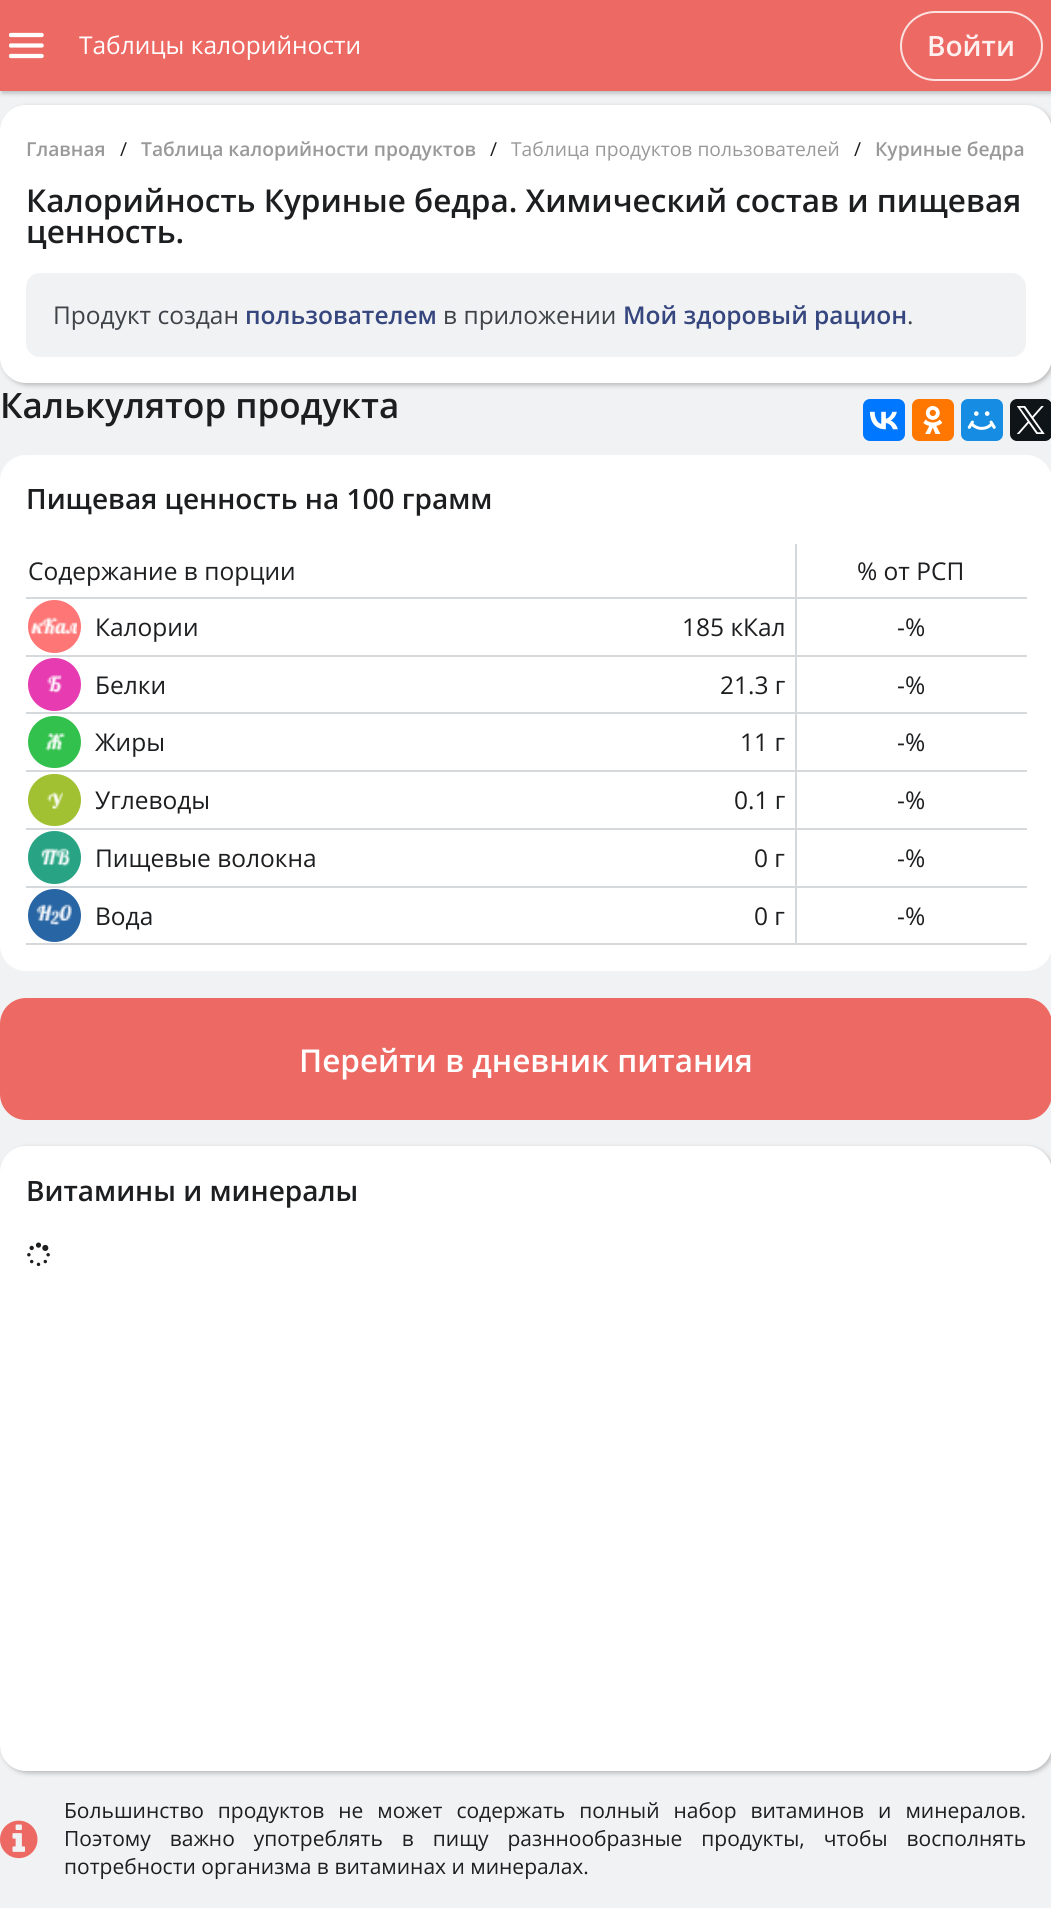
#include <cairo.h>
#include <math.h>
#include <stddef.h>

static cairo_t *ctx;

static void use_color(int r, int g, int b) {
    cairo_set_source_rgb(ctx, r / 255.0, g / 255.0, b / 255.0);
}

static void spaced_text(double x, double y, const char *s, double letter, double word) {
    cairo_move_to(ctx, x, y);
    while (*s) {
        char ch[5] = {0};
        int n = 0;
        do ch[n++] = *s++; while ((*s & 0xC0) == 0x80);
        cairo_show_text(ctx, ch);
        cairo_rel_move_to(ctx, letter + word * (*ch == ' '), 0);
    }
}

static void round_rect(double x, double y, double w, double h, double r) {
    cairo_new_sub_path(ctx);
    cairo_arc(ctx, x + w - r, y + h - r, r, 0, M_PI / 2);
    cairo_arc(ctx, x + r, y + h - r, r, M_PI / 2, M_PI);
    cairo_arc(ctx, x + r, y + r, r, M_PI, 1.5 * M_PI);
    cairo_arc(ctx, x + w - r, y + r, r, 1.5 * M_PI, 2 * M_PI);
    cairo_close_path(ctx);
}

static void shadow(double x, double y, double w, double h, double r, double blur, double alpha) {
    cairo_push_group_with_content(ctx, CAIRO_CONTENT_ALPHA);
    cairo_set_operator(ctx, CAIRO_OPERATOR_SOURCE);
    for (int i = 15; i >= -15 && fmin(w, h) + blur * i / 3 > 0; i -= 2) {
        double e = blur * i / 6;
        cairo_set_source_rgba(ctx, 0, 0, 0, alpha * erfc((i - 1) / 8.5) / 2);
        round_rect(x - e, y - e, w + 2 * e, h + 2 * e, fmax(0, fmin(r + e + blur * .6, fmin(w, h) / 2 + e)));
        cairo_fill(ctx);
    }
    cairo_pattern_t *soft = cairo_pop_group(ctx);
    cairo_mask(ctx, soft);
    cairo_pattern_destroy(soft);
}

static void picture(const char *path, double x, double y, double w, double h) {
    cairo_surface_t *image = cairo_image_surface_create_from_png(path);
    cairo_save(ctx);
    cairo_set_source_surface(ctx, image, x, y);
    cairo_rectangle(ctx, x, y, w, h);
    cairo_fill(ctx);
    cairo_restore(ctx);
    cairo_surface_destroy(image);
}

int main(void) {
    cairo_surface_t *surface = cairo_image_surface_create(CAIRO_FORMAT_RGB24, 1051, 1908);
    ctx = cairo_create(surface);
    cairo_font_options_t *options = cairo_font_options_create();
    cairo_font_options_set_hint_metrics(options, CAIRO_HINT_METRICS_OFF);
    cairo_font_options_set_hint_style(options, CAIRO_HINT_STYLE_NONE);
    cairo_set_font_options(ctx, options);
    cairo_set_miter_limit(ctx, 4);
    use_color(241, 242, 243);
    cairo_paint(ctx);
    use_color(0, 0, 0);
    shadow(2, 2, 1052, 91, 0, 2.5, 0.25);
    use_color(237, 105, 99);
    cairo_rectangle(ctx, 0, 0, 1051, 91);
    cairo_fill(ctx);
    picture("img1.png", 9, 32, 35, 27);
    cairo_select_font_face(ctx, "Open Sans", CAIRO_FONT_SLANT_NORMAL, CAIRO_FONT_WEIGHT_NORMAL);
    cairo_set_font_size(ctx, 24.5);
    use_color(255, 255, 255);
    cairo_move_to(ctx, 79, 54);
    cairo_show_text(ctx, "Таблицы калорийности");
    round_rect(901, 12, 141, 68, 34);
    use_color(251, 225, 224);
    cairo_stroke(ctx);
    cairo_select_font_face(ctx, "Open Sans SemiBold", CAIRO_FONT_SLANT_NORMAL, CAIRO_FONT_WEIGHT_NORMAL);
    cairo_set_font_size(ctx, 28);
    use_color(253, 240, 239);
    cairo_move_to(ctx, 927, 56);
    cairo_show_text(ctx, "Войти");
    use_color(0, 0, 0);
    shadow(2, 107, 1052, 278, 26, 2.5, 0.25);
    use_color(255, 255, 255);
    round_rect(0, 105, 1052, 278, 26);
    cairo_fill(ctx);
    cairo_set_font_size(ctx, 19.25);
    use_color(153, 153, 153);
    cairo_move_to(ctx, 26, 156);
    cairo_show_text(ctx, "Главная");
    cairo_select_font_face(ctx, "Open Sans", CAIRO_FONT_SLANT_NORMAL, CAIRO_FONT_WEIGHT_NORMAL);
    use_color(28, 30, 32);
    cairo_move_to(ctx, 120, 156);
    cairo_show_text(ctx, "/");
    cairo_select_font_face(ctx, "Open Sans SemiBold", CAIRO_FONT_SLANT_NORMAL, CAIRO_FONT_WEIGHT_NORMAL);
    use_color(153, 153, 153);
    cairo_move_to(ctx, 141, 156);
    cairo_show_text(ctx, "Таблица калорийности продуктов");
    cairo_select_font_face(ctx, "Open Sans", CAIRO_FONT_SLANT_NORMAL, CAIRO_FONT_WEIGHT_NORMAL);
    use_color(28, 30, 32);
    cairo_move_to(ctx, 490, 156);
    cairo_show_text(ctx, "/");
    use_color(153, 153, 153);
    cairo_move_to(ctx, 511, 156);
    cairo_show_text(ctx, "Таблица продуктов пользователей");
    use_color(28, 30, 32);
    cairo_move_to(ctx, 854, 156);
    cairo_show_text(ctx, "/");
    cairo_select_font_face(ctx, "Open Sans SemiBold", CAIRO_FONT_SLANT_NORMAL, CAIRO_FONT_WEIGHT_NORMAL);
    use_color(153, 153, 153);
    cairo_move_to(ctx, 875, 156);
    cairo_show_text(ctx, "Куриные бедра");
    cairo_set_font_size(ctx, 31.5);
    use_color(28, 30, 32);
    cairo_move_to(ctx, 26, 212);
    cairo_show_text(ctx, "Калорийность Куриные бедра. Химический состав и пищевая");
    cairo_move_to(ctx, 26, 243);
    cairo_show_text(ctx, "ценность.");
    use_color(241, 242, 243);
    round_rect(26, 273, 1000, 84, 14);
    cairo_fill(ctx);
    cairo_select_font_face(ctx, "Open Sans", CAIRO_FONT_SLANT_NORMAL, CAIRO_FONT_WEIGHT_NORMAL);
    cairo_set_font_size(ctx, 24.5);
    use_color(61, 67, 72);
    cairo_move_to(ctx, 53, 324);
    cairo_show_text(ctx, "Продукт создан");
    cairo_select_font_face(ctx, "Open Sans SemiBold", CAIRO_FONT_SLANT_NORMAL, CAIRO_FONT_WEIGHT_NORMAL);
    use_color(54, 70, 126);
    cairo_move_to(ctx, 245, 324);
    cairo_show_text(ctx, "пользователем");
    cairo_select_font_face(ctx, "Open Sans", CAIRO_FONT_SLANT_NORMAL, CAIRO_FONT_WEIGHT_NORMAL);
    use_color(61, 67, 72);
    cairo_move_to(ctx, 443, 324);
    cairo_show_text(ctx, "в приложении");
    cairo_select_font_face(ctx, "Open Sans SemiBold", CAIRO_FONT_SLANT_NORMAL, CAIRO_FONT_WEIGHT_NORMAL);
    use_color(54, 70, 126);
    cairo_move_to(ctx, 623, 324);
    cairo_show_text(ctx, "Мой здоровый рацион");
    cairo_select_font_face(ctx, "Open Sans", CAIRO_FONT_SLANT_NORMAL, CAIRO_FONT_WEIGHT_NORMAL);
    use_color(61, 67, 72);
    cairo_move_to(ctx, 907, 324);
    cairo_show_text(ctx, ".");
    cairo_select_font_face(ctx, "Open Sans SemiBold", CAIRO_FONT_SLANT_NORMAL, CAIRO_FONT_WEIGHT_NORMAL);
    cairo_set_font_size(ctx, 35);
    use_color(28, 30, 32);
    cairo_move_to(ctx, 0, 418);
    cairo_show_text(ctx, "Калькулятор продукта");
    use_color(0, 119, 255);
    round_rect(863, 399, 42, 42, 7);
    cairo_fill(ctx);
    picture("img2.png", 869, 411, 29, 19);
    use_color(255, 119, 0);
    round_rect(912, 399, 42, 42, 7);
    cairo_fill(ctx);
    picture("img3.png", 923, 406, 20, 28);
    use_color(22, 141, 226);
    round_rect(961, 399, 42, 42, 7);
    cairo_fill(ctx);
    picture("img4.png", 967, 411, 29, 19);
    use_color(15, 20, 25);
    round_rect(1010, 399, 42, 42, 7);
    cairo_fill(ctx);
    picture("img5.png", 1016, 406, 29, 28);
    use_color(255, 255, 255);
    round_rect(0, 455, 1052, 516, 26);
    cairo_fill(ctx);
    cairo_set_font_size(ctx, 28);
    use_color(28, 30, 32);
    cairo_move_to(ctx, 26, 509);
    cairo_show_text(ctx, "Пищевая ценность на 100 грамм");
    use_color(214, 217, 220);
    cairo_rectangle(ctx, 795, 943, 232, 2);
    cairo_fill(ctx);
    cairo_rectangle(ctx, 795, 886, 2, 59);
    cairo_fill(ctx);
    cairo_rectangle(ctx, 795, 886, 232, 2);
    cairo_fill(ctx);
    cairo_rectangle(ctx, 795, 828, 2, 59);
    cairo_fill(ctx);
    cairo_rectangle(ctx, 795, 828, 232, 2);
    cairo_fill(ctx);
    cairo_rectangle(ctx, 795, 770, 2, 60);
    cairo_fill(ctx);
    cairo_rectangle(ctx, 795, 770, 232, 2);
    cairo_fill(ctx);
    cairo_rectangle(ctx, 795, 712, 2, 60);
    cairo_fill(ctx);
    cairo_rectangle(ctx, 795, 712, 232, 2);
    cairo_fill(ctx);
    cairo_rectangle(ctx, 795, 655, 2, 59);
    cairo_fill(ctx);
    cairo_rectangle(ctx, 795, 655, 232, 2);
    cairo_fill(ctx);
    cairo_rectangle(ctx, 795, 597, 2, 59);
    cairo_fill(ctx);
    cairo_rectangle(ctx, 795, 597, 232, 2);
    cairo_fill(ctx);
    cairo_rectangle(ctx, 795, 544, 2, 55);
    cairo_fill(ctx);
    cairo_rectangle(ctx, 26, 597, 770, 2);
    cairo_fill(ctx);
    cairo_select_font_face(ctx, "Open Sans", CAIRO_FONT_SLANT_NORMAL, CAIRO_FONT_WEIGHT_NORMAL);
    cairo_set_font_size(ctx, 24.5);
    use_color(28, 30, 32);
    cairo_move_to(ctx, 28, 580);
    cairo_show_text(ctx, "Содержание в порции");
    cairo_move_to(ctx, 857, 580);
    cairo_show_text(ctx, "% от РСП");
    use_color(255, 118, 118);
    cairo_new_path(ctx);
    cairo_arc(ctx, 54.5, 626.5, 26.5, 0, 2 * M_PI);
    cairo_fill(ctx);
    picture("img6.png", 31, 617, 46, 19);
    use_color(28, 30, 32);
    cairo_move_to(ctx, 95, 636);
    cairo_show_text(ctx, "Калории");
    use_color(214, 217, 220);
    cairo_rectangle(ctx, 26, 655, 770, 2);
    cairo_fill(ctx);
    use_color(28, 30, 32);
    cairo_move_to(ctx, 682, 636);
    cairo_show_text(ctx, "185 кКал");
    cairo_move_to(ctx, 897, 636);
    cairo_show_text(ctx, "-%");
    use_color(231, 60, 177);
    cairo_new_path(ctx);
    cairo_arc(ctx, 54.5, 684.5, 26.5, 0, 2 * M_PI);
    cairo_fill(ctx);
    picture("img7.png", 47, 675, 15, 18);
    use_color(28, 30, 32);
    cairo_move_to(ctx, 95, 694);
    cairo_show_text(ctx, "Белки");
    use_color(214, 217, 220);
    cairo_rectangle(ctx, 26, 712, 770, 2);
    cairo_fill(ctx);
    use_color(28, 30, 32);
    cairo_move_to(ctx, 720, 694);
    cairo_show_text(ctx, "21.3 г");
    cairo_move_to(ctx, 897, 694);
    cairo_show_text(ctx, "-%");
    use_color(51, 193, 78);
    round_rect(28, 716, 53, 52, 26);
    cairo_fill(ctx);
    picture("img8.png", 45, 733, 20, 18);
    use_color(28, 30, 32);
    cairo_move_to(ctx, 95, 751);
    cairo_show_text(ctx, "Жиры");
    use_color(214, 217, 220);
    cairo_rectangle(ctx, 26, 770, 770, 2);
    cairo_fill(ctx);
    use_color(28, 30, 32);
    cairo_move_to(ctx, 740, 751);
    cairo_show_text(ctx, "11 г");
    cairo_move_to(ctx, 897, 751);
    cairo_show_text(ctx, "-%");
    use_color(161, 193, 51);
    round_rect(28, 774, 53, 52, 26);
    cairo_fill(ctx);
    picture("img9.png", 47, 792, 16, 17);
    use_color(28, 30, 32);
    cairo_move_to(ctx, 95, 809);
    cairo_show_text(ctx, "Углеводы");
    use_color(214, 217, 220);
    cairo_rectangle(ctx, 26, 828, 770, 2);
    cairo_fill(ctx);
    use_color(28, 30, 32);
    cairo_move_to(ctx, 734, 809);
    cairo_show_text(ctx, "0.1 г");
    cairo_move_to(ctx, 897, 809);
    cairo_show_text(ctx, "-%");
    use_color(40, 164, 133);
    cairo_new_path(ctx);
    cairo_arc(ctx, 54.5, 857.5, 26.5, 0, 2 * M_PI);
    cairo_fill(ctx);
    picture("img10.png", 40, 848, 30, 19);
    use_color(28, 30, 32);
    cairo_move_to(ctx, 95, 867);
    cairo_show_text(ctx, "Пищевые волокна");
    use_color(214, 217, 220);
    cairo_rectangle(ctx, 26, 886, 770, 2);
    cairo_fill(ctx);
    use_color(28, 30, 32);
    cairo_move_to(ctx, 754, 867);
    cairo_show_text(ctx, "0 г");
    cairo_move_to(ctx, 897, 867);
    cairo_show_text(ctx, "-%");
    use_color(40, 101, 164);
    cairo_new_path(ctx);
    cairo_arc(ctx, 54.5, 915.5, 26.5, 0, 2 * M_PI);
    cairo_fill(ctx);
    picture("img11.png", 36, 904, 36, 22);
    use_color(28, 30, 32);
    cairo_move_to(ctx, 95, 925);
    cairo_show_text(ctx, "Вода");
    use_color(214, 217, 220);
    cairo_rectangle(ctx, 26, 943, 770, 2);
    cairo_fill(ctx);
    use_color(28, 30, 32);
    cairo_move_to(ctx, 754, 925);
    cairo_show_text(ctx, "0 г");
    cairo_move_to(ctx, 897, 925);
    cairo_show_text(ctx, "-%");
    use_color(237, 105, 99);
    round_rect(0, 998, 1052, 122, 26);
    cairo_fill(ctx);
    cairo_select_font_face(ctx, "Open Sans SemiBold", CAIRO_FONT_SLANT_NORMAL, CAIRO_FONT_WEIGHT_NORMAL);
    cairo_set_font_size(ctx, 31.5);
    use_color(255, 255, 255);
    cairo_move_to(ctx, 299, 1072);
    cairo_show_text(ctx, "Перейти в дневник питания");
    use_color(0, 0, 0);
    shadow(2, 1148, 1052, 625, 26, 2.5, 0.25);
    use_color(255, 255, 255);
    round_rect(0, 1146, 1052, 625, 26);
    cairo_fill(ctx);
    cairo_set_font_size(ctx, 28);
    use_color(28, 30, 32);
    cairo_move_to(ctx, 26, 1201);
    cairo_show_text(ctx, "Витамины и минералы");
    picture("img12.png", 27, 1242, 23, 25);
    picture("img13.png", 0, 1820, 38, 39);
    cairo_select_font_face(ctx, "Open Sans", CAIRO_FONT_SLANT_NORMAL, CAIRO_FONT_WEIGHT_NORMAL);
    cairo_set_font_size(ctx, 21);
    spaced_text(64, 1818, "Большинство продуктов не может содержать полный набор витаминов и минералов.", 0, 8.5);
    spaced_text(64, 1846, "Поэтому важно употреблять в пищу разннообразные продукты, чтобы восполнять", 0, 13.5);
    cairo_move_to(ctx, 64, 1874);
    cairo_show_text(ctx, "потребности организма в витаминах и минералах.");
    cairo_surface_write_to_png(surface, "result.png");
    cairo_font_options_destroy(options);
    cairo_destroy(ctx);
    cairo_surface_destroy(surface);
    return 0;
}
